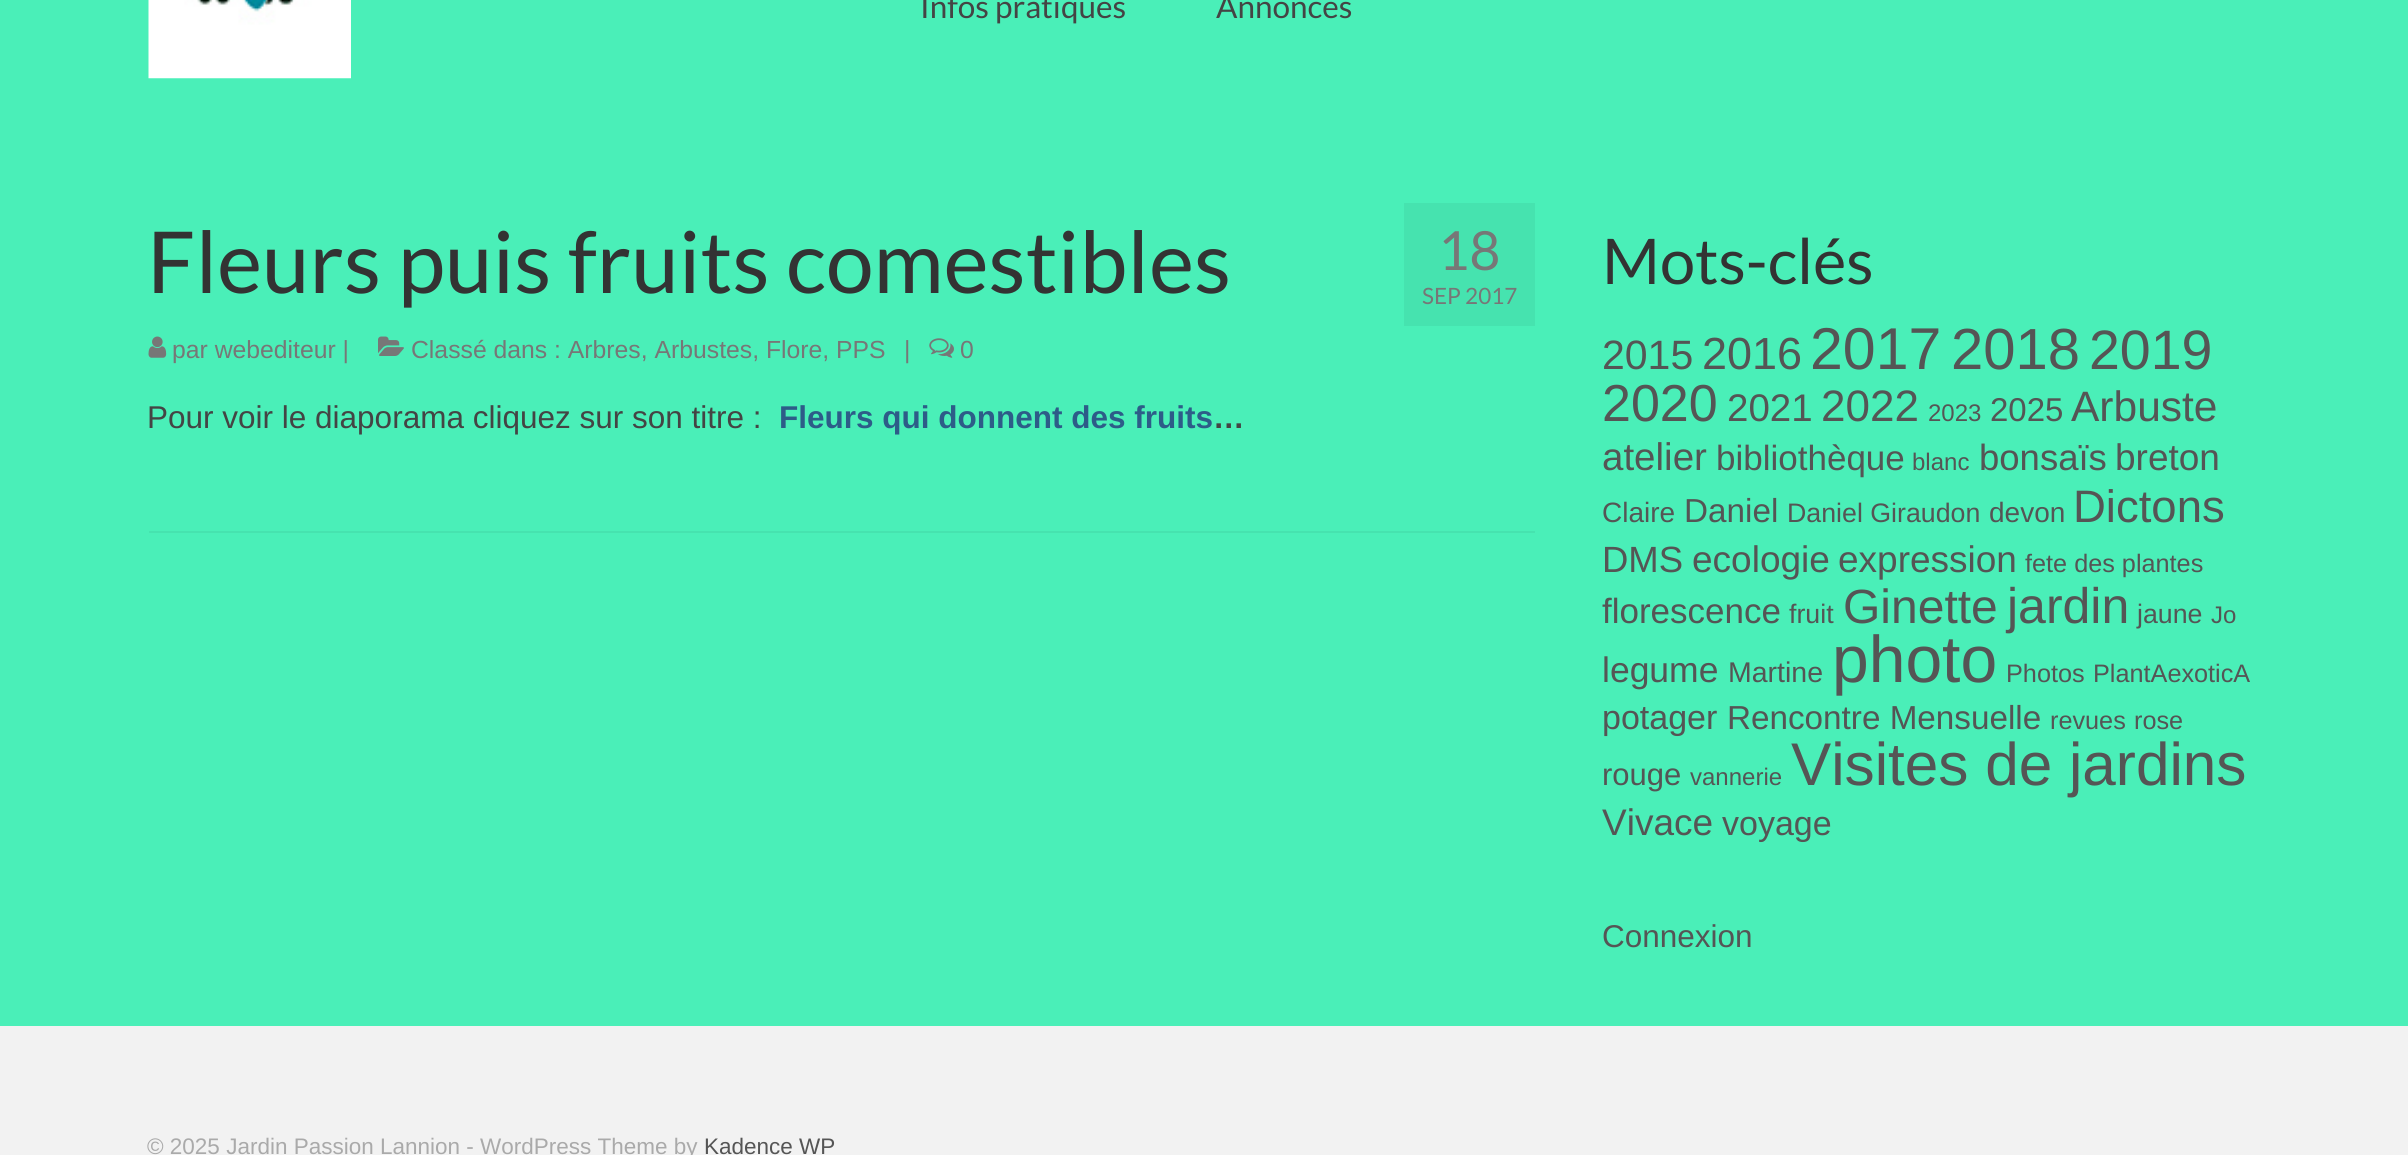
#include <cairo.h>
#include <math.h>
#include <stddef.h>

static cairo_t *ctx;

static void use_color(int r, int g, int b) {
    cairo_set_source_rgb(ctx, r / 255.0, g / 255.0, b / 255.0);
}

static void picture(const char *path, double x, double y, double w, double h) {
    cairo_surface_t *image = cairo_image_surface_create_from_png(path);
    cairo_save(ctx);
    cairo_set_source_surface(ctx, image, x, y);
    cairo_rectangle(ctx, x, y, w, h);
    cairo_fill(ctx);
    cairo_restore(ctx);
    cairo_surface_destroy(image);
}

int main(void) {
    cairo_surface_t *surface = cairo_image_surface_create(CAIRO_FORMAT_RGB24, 2408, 1155);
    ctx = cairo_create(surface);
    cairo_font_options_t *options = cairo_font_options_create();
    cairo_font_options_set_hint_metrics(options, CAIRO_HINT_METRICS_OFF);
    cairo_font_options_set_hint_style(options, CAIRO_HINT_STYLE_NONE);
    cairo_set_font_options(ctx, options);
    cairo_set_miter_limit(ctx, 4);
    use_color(74, 239, 184);
    cairo_paint(ctx);
    picture("img1.png", 148, 0, 203, 79);
    cairo_select_font_face(ctx, "Lato", CAIRO_FONT_SLANT_NORMAL, CAIRO_FONT_WEIGHT_NORMAL);
    cairo_set_font_size(ctx, 31.5);
    use_color(68, 68, 68);
    cairo_move_to(ctx, 920, 18);
    cairo_show_text(ctx, "Infos pratiques");
    cairo_move_to(ctx, 1216, 18);
    cairo_show_text(ctx, "Annonces");
    cairo_set_font_size(ctx, 85.5);
    use_color(51, 51, 51);
    cairo_move_to(ctx, 147, 293);
    cairo_show_text(ctx, "Fleurs puis fruits comestibles");
    picture("img2.png", 148, 336, 19, 22);
    cairo_select_font_face(ctx, "Liberation Sans", CAIRO_FONT_SLANT_NORMAL, CAIRO_FONT_WEIGHT_NORMAL);
    cairo_set_font_size(ctx, 24.75);
    use_color(119, 119, 119);
    cairo_move_to(ctx, 172, 358);
    cairo_show_text(ctx, "par webediteur |");
    picture("img3.png", 378, 336, 26, 20);
    cairo_move_to(ctx, 411, 358);
    cairo_show_text(ctx, "Classé dans : Arbres, Arbustes, Flore, PPS");
    cairo_move_to(ctx, 904, 358);
    cairo_show_text(ctx, "|");
    picture("img4.png", 929, 338, 25, 20);
    cairo_move_to(ctx, 960, 358);
    cairo_show_text(ctx, "0");
    use_color(70, 227, 175);
    cairo_rectangle(ctx, 1404, 203, 131, 123);
    cairo_fill(ctx);
    cairo_select_font_face(ctx, "Lato", CAIRO_FONT_SLANT_NORMAL, CAIRO_FONT_WEIGHT_NORMAL);
    cairo_set_font_size(ctx, 54);
    use_color(119, 119, 119);
    cairo_move_to(ctx, 1438, 270);
    cairo_show_text(ctx, "18");
    cairo_set_font_size(ctx, 22.5);
    cairo_move_to(ctx, 1422, 304);
    cairo_show_text(ctx, "SEP 2017");
    cairo_select_font_face(ctx, "Liberation Sans", CAIRO_FONT_SLANT_NORMAL, CAIRO_FONT_WEIGHT_NORMAL);
    cairo_set_font_size(ctx, 31.5);
    use_color(68, 68, 68);
    cairo_move_to(ctx, 147, 428);
    cairo_show_text(ctx, "Pour voir le diaporama cliquez sur son titre :");
    cairo_select_font_face(ctx, "Liberation Sans", CAIRO_FONT_SLANT_NORMAL, CAIRO_FONT_WEIGHT_BOLD);
    use_color(45, 92, 136);
    cairo_move_to(ctx, 779, 428);
    cairo_show_text(ctx, "Fleurs qui donnent des fruits");
    use_color(68, 68, 68);
    cairo_move_to(ctx, 1213, 428);
    cairo_show_text(ctx, "…");
    use_color(70, 227, 175);
    cairo_rectangle(ctx, 149, 531, 1386, 2);
    cairo_fill(ctx);
    cairo_select_font_face(ctx, "Lato", CAIRO_FONT_SLANT_NORMAL, CAIRO_FONT_WEIGHT_NORMAL);
    cairo_set_font_size(ctx, 63);
    use_color(51, 51, 51);
    cairo_move_to(ctx, 1602, 284);
    cairo_show_text(ctx, "Mots-clés");
    cairo_select_font_face(ctx, "Liberation Sans", CAIRO_FONT_SLANT_NORMAL, CAIRO_FONT_WEIGHT_NORMAL);
    cairo_set_font_size(ctx, 41);
    use_color(85, 85, 85);
    cairo_move_to(ctx, 1602, 369);
    cairo_show_text(ctx, "2015");
    cairo_set_font_size(ctx, 45);
    cairo_move_to(ctx, 1702, 369);
    cairo_show_text(ctx, "2016");
    cairo_set_font_size(ctx, 59);
    cairo_move_to(ctx, 1810, 369);
    cairo_show_text(ctx, "2017");
    cairo_set_font_size(ctx, 58);
    cairo_move_to(ctx, 1951, 369);
    cairo_show_text(ctx, "2018");
    cairo_set_font_size(ctx, 55.5);
    cairo_move_to(ctx, 2089, 369);
    cairo_show_text(ctx, "2019");
    cairo_set_font_size(ctx, 52);
    cairo_move_to(ctx, 1602, 421);
    cairo_show_text(ctx, "2020");
    cairo_set_font_size(ctx, 38.5);
    cairo_move_to(ctx, 1727, 421);
    cairo_show_text(ctx, "2021");
    cairo_set_font_size(ctx, 44);
    cairo_move_to(ctx, 1821, 421);
    cairo_show_text(ctx, "2022");
    cairo_set_font_size(ctx, 24);
    cairo_move_to(ctx, 1928, 421);
    cairo_show_text(ctx, "2023");
    cairo_set_font_size(ctx, 33);
    cairo_move_to(ctx, 1990, 421);
    cairo_show_text(ctx, "2025");
    cairo_set_font_size(ctx, 42.5);
    cairo_move_to(ctx, 2071, 421);
    cairo_show_text(ctx, "Arbuste");
    cairo_set_font_size(ctx, 38.5);
    cairo_move_to(ctx, 1602, 470);
    cairo_show_text(ctx, "atelier");
    cairo_set_font_size(ctx, 35);
    cairo_move_to(ctx, 1716, 470);
    cairo_show_text(ctx, "bibliothèque");
    cairo_set_font_size(ctx, 24);
    cairo_move_to(ctx, 1912, 470);
    cairo_show_text(ctx, "blanc");
    cairo_set_font_size(ctx, 36.5);
    cairo_move_to(ctx, 1979, 470);
    cairo_show_text(ctx, "bonsaïs");
    cairo_set_font_size(ctx, 37);
    cairo_move_to(ctx, 2115, 470);
    cairo_show_text(ctx, "breton");
    cairo_set_font_size(ctx, 28);
    cairo_move_to(ctx, 1602, 522);
    cairo_show_text(ctx, "Claire");
    cairo_set_font_size(ctx, 33.25);
    cairo_move_to(ctx, 1684, 522);
    cairo_show_text(ctx, "Daniel");
    cairo_set_font_size(ctx, 26.75);
    cairo_move_to(ctx, 1787, 522);
    cairo_show_text(ctx, "Daniel Giraudon");
    cairo_set_font_size(ctx, 28);
    cairo_move_to(ctx, 1989, 522);
    cairo_show_text(ctx, "devon");
    cairo_set_font_size(ctx, 45.5);
    cairo_move_to(ctx, 2073, 522);
    cairo_show_text(ctx, "Dictons");
    cairo_set_font_size(ctx, 36.5);
    cairo_move_to(ctx, 1602, 572);
    cairo_show_text(ctx, "DMS");
    cairo_set_font_size(ctx, 37);
    cairo_move_to(ctx, 1692, 572);
    cairo_show_text(ctx, "ecologie");
    cairo_move_to(ctx, 1838, 572);
    cairo_show_text(ctx, "expression");
    cairo_set_font_size(ctx, 25.25);
    cairo_move_to(ctx, 2025, 572);
    cairo_show_text(ctx, "fete des plantes");
    cairo_set_font_size(ctx, 35);
    cairo_move_to(ctx, 1602, 623);
    cairo_show_text(ctx, "florescence");
    cairo_set_font_size(ctx, 26.75);
    cairo_move_to(ctx, 1789, 623);
    cairo_show_text(ctx, "fruit");
    cairo_set_font_size(ctx, 48);
    cairo_move_to(ctx, 1843, 623);
    cairo_show_text(ctx, "Ginette");
    cairo_set_font_size(ctx, 50);
    cairo_move_to(ctx, 2007, 623);
    cairo_show_text(ctx, "jardin");
    cairo_set_font_size(ctx, 26.75);
    cairo_move_to(ctx, 2137, 623);
    cairo_show_text(ctx, "jaune");
    cairo_set_font_size(ctx, 24);
    cairo_move_to(ctx, 2211, 623);
    cairo_show_text(ctx, "Jo");
    cairo_set_font_size(ctx, 35.5);
    cairo_move_to(ctx, 1602, 682);
    cairo_show_text(ctx, "legume");
    cairo_set_font_size(ctx, 28.5);
    cairo_move_to(ctx, 1728, 682);
    cairo_show_text(ctx, "Martine");
    cairo_set_font_size(ctx, 66);
    cairo_move_to(ctx, 1832, 682);
    cairo_show_text(ctx, "photo");
    cairo_set_font_size(ctx, 25.25);
    cairo_move_to(ctx, 2006, 682);
    cairo_show_text(ctx, "Photos");
    cairo_move_to(ctx, 2093, 682);
    cairo_show_text(ctx, "PlantAexoticA");
    cairo_set_font_size(ctx, 34);
    cairo_move_to(ctx, 1602, 729);
    cairo_show_text(ctx, "potager");
    cairo_set_font_size(ctx, 33.25);
    cairo_move_to(ctx, 1727, 729);
    cairo_show_text(ctx, "Rencontre Mensuelle");
    cairo_set_font_size(ctx, 25.25);
    cairo_move_to(ctx, 2050, 729);
    cairo_show_text(ctx, "revues");
    cairo_move_to(ctx, 2134, 729);
    cairo_show_text(ctx, "rose");
    cairo_set_font_size(ctx, 31);
    cairo_move_to(ctx, 1602, 785);
    cairo_show_text(ctx, "rouge");
    cairo_set_font_size(ctx, 24);
    cairo_move_to(ctx, 1690, 785);
    cairo_show_text(ctx, "vannerie");
    cairo_set_font_size(ctx, 60.25);
    cairo_move_to(ctx, 1791, 785);
    cairo_show_text(ctx, "Visites de jardins");
    cairo_set_font_size(ctx, 37);
    cairo_move_to(ctx, 1602, 835);
    cairo_show_text(ctx, "Vivace");
    cairo_set_font_size(ctx, 34);
    cairo_move_to(ctx, 1722, 835);
    cairo_show_text(ctx, "voyage");
    cairo_set_font_size(ctx, 31.5);
    cairo_move_to(ctx, 1602, 947);
    cairo_show_text(ctx, "Connexion");
    use_color(242, 242, 242);
    cairo_rectangle(ctx, 0, 1026, 2408, 129);
    cairo_fill(ctx);
    cairo_set_font_size(ctx, 22.5);
    use_color(170, 170, 170);
    cairo_move_to(ctx, 147, 1154);
    cairo_show_text(ctx, "© 2025 Jardin Passion Lannion - WordPress Theme by");
    use_color(85, 85, 85);
    cairo_move_to(ctx, 704, 1154);
    cairo_show_text(ctx, "Kadence WP");
    cairo_surface_write_to_png(surface, "result.png");
    cairo_font_options_destroy(options);
    cairo_destroy(ctx);
    cairo_surface_destroy(surface);
    return 0;
}
